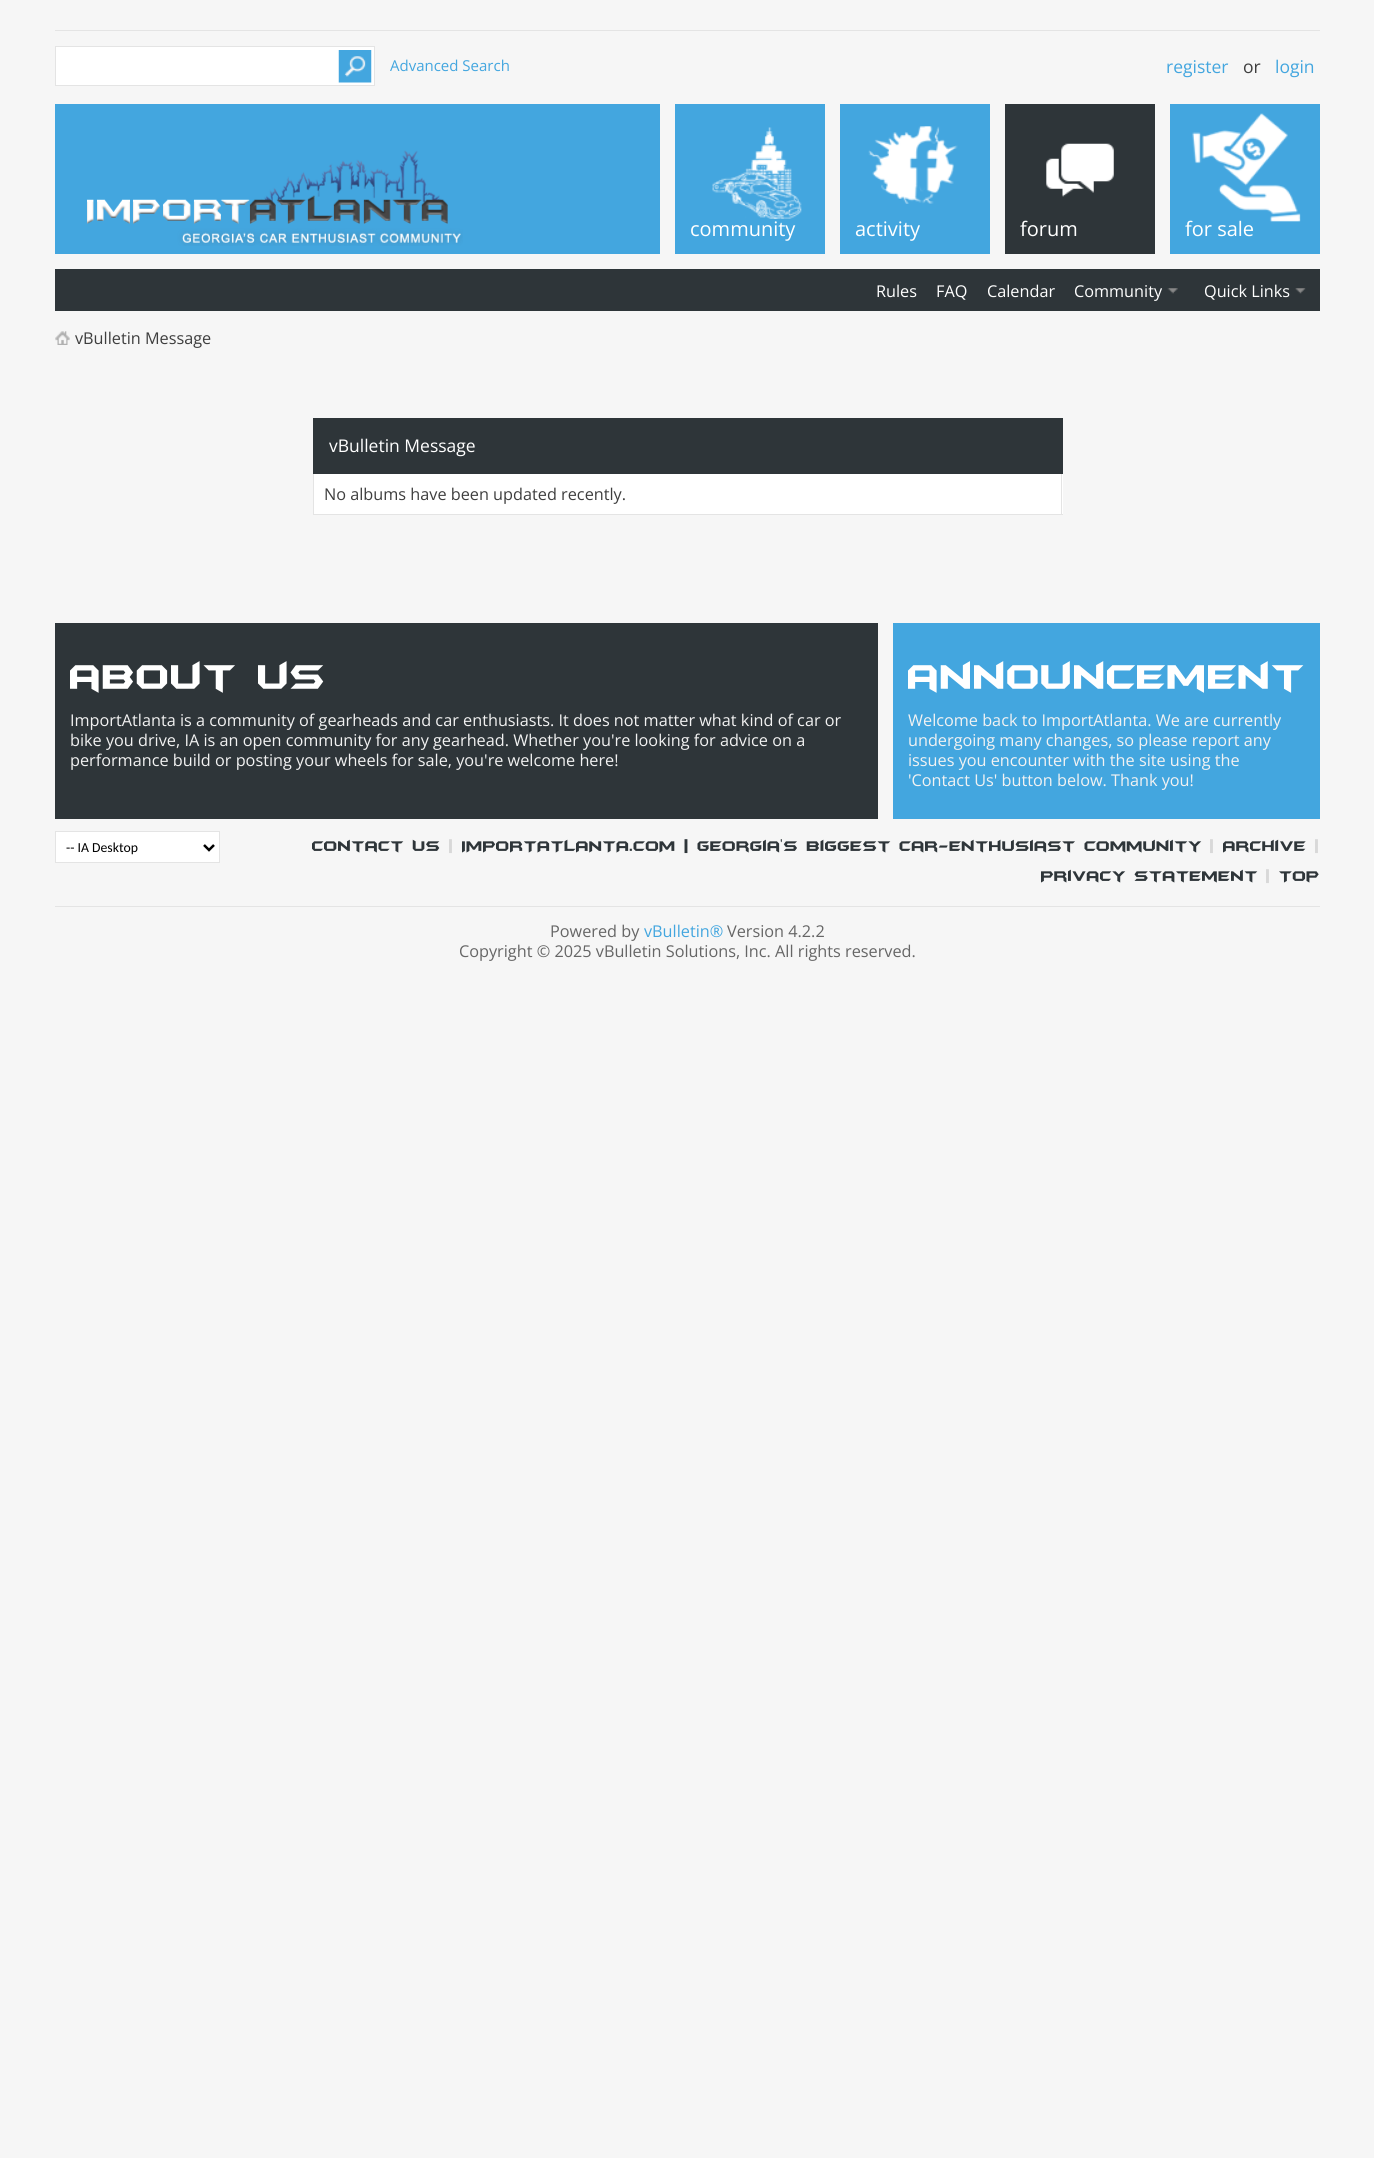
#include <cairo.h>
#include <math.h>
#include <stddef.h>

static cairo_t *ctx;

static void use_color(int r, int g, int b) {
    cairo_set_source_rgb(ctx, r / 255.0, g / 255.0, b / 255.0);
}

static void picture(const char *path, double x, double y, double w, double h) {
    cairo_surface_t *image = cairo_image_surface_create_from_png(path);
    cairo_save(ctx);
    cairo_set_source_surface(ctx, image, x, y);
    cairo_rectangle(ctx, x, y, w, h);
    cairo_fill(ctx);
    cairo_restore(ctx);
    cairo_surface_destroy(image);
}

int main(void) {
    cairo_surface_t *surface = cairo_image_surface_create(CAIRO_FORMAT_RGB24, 1374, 2158);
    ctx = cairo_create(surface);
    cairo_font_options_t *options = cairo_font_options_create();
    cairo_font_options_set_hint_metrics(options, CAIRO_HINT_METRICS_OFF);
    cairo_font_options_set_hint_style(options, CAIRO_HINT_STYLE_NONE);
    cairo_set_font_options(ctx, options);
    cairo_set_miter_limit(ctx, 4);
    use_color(246, 246, 246);
    cairo_paint(ctx);
    use_color(228, 228, 228);
    cairo_rectangle(ctx, 55, 30, 1265, 1);
    cairo_fill(ctx);
    use_color(255, 255, 255);
    cairo_rectangle(ctx, 55.5, 46.5, 319, 39);
    cairo_fill_preserve(ctx);
    use_color(228, 228, 228);
    cairo_set_line_width(ctx, 1);
    cairo_stroke(ctx);
    picture("img1.png", 338, 50, 34, 33);
    cairo_select_font_face(ctx, "Open Sans", CAIRO_FONT_SLANT_NORMAL, CAIRO_FONT_WEIGHT_NORMAL);
    cairo_set_font_size(ctx, 15);
    use_color(67, 166, 223);
    cairo_move_to(ctx, 390, 71);
    cairo_show_text(ctx, "Advanced Search");
    cairo_set_font_size(ctx, 17.5);
    cairo_move_to(ctx, 1166, 73);
    cairo_show_text(ctx, "register");
    use_color(62, 62, 62);
    cairo_move_to(ctx, 1243, 73);
    cairo_show_text(ctx, "or");
    use_color(67, 166, 223);
    cairo_move_to(ctx, 1275, 73);
    cairo_show_text(ctx, "login");
    cairo_rectangle(ctx, 55, 104, 1265, 150);
    cairo_fill(ctx);
    picture("img2.png", 87, 150, 376, 96);
    use_color(246, 246, 246);
    cairo_rectangle(ctx, 660, 104, 15, 150);
    cairo_fill(ctx);
    picture("img3.png", 712, 127, 90, 92);
    cairo_set_font_size(ctx, 20);
    use_color(255, 255, 255);
    cairo_move_to(ctx, 690, 236);
    cairo_show_text(ctx, "community");
    use_color(246, 246, 246);
    cairo_rectangle(ctx, 825, 104, 15, 150);
    cairo_fill(ctx);
    picture("img4.png", 868, 126, 90, 78);
    use_color(255, 255, 255);
    cairo_move_to(ctx, 855, 236);
    cairo_show_text(ctx, "activity");
    use_color(246, 246, 246);
    cairo_rectangle(ctx, 990, 104, 15, 150);
    cairo_fill(ctx);
    use_color(46, 53, 57);
    cairo_rectangle(ctx, 1005, 104, 150, 150);
    cairo_fill(ctx);
    picture("img5.png", 1046, 143, 68, 54);
    use_color(255, 255, 255);
    cairo_move_to(ctx, 1020, 236);
    cairo_show_text(ctx, "forum");
    use_color(246, 246, 246);
    cairo_rectangle(ctx, 1155, 104, 15, 150);
    cairo_fill(ctx);
    picture("img6.png", 1192, 113, 109, 109);
    use_color(255, 255, 255);
    cairo_move_to(ctx, 1185, 236);
    cairo_show_text(ctx, "for sale");
    use_color(46, 53, 57);
    cairo_rectangle(ctx, 55, 269, 1265, 42);
    cairo_fill(ctx);
    cairo_set_font_size(ctx, 16.25);
    use_color(255, 255, 255);
    cairo_move_to(ctx, 876, 297);
    cairo_show_text(ctx, "Rules");
    cairo_move_to(ctx, 936, 297);
    cairo_show_text(ctx, "FAQ");
    cairo_move_to(ctx, 987, 297);
    cairo_show_text(ctx, "Calendar");
    cairo_move_to(ctx, 1074, 297);
    cairo_show_text(ctx, "Community");
    picture("img7.png", 1167, 288, 11, 6);
    cairo_move_to(ctx, 1204, 297);
    cairo_show_text(ctx, "Quick Links");
    picture("img8.png", 1295, 288, 11, 6);
    picture("img9.png", 55, 331, 15, 14);
    use_color(62, 62, 62);
    cairo_move_to(ctx, 75, 344);
    cairo_show_text(ctx, "vBulletin Message");
    use_color(46, 53, 57);
    cairo_rectangle(ctx, 313, 418, 750, 56);
    cairo_fill(ctx);
    cairo_set_font_size(ctx, 17.5);
    use_color(255, 255, 255);
    cairo_move_to(ctx, 329, 452);
    cairo_show_text(ctx, "vBulletin Message");
    cairo_rectangle(ctx, 314, 474, 749, 40);
    cairo_fill(ctx);
    use_color(228, 228, 228);
    cairo_rectangle(ctx, 1061, 474, 1, 41);
    cairo_fill(ctx);
    cairo_rectangle(ctx, 313, 514, 750, 1);
    cairo_fill(ctx);
    cairo_rectangle(ctx, 313, 474, 1, 41);
    cairo_fill(ctx);
    cairo_set_font_size(ctx, 16.25);
    use_color(62, 62, 62);
    cairo_move_to(ctx, 324, 500);
    cairo_show_text(ctx, "No albums have been updated recently.");
    use_color(46, 53, 57);
    cairo_rectangle(ctx, 55, 623, 823, 196);
    cairo_fill(ctx);
    cairo_select_font_face(ctx, "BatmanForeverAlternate", CAIRO_FONT_SLANT_NORMAL, CAIRO_FONT_WEIGHT_NORMAL);
    cairo_set_font_size(ctx, 40);
    use_color(255, 255, 255);
    cairo_move_to(ctx, 70, 689);
    cairo_show_text(ctx, "about us");
    cairo_select_font_face(ctx, "Open Sans", CAIRO_FONT_SLANT_NORMAL, CAIRO_FONT_WEIGHT_NORMAL);
    cairo_set_font_size(ctx, 16.25);
    use_color(242, 242, 242);
    cairo_move_to(ctx, 70, 726);
    cairo_show_text(ctx, "ImportAtlanta is a community of gearheads and car enthusiasts. It does not matter what kind of car or");
    cairo_move_to(ctx, 70, 746);
    cairo_show_text(ctx, "bike you drive, IA is an open community for any gearhead. Whether you're looking for advice on a");
    cairo_move_to(ctx, 70, 766);
    cairo_show_text(ctx, "performance build or posting your wheels for sale, you're welcome here!");
    use_color(67, 166, 223);
    cairo_rectangle(ctx, 893, 623, 427, 196);
    cairo_fill(ctx);
    cairo_select_font_face(ctx, "BatmanForeverAlternate", CAIRO_FONT_SLANT_NORMAL, CAIRO_FONT_WEIGHT_NORMAL);
    cairo_set_font_size(ctx, 40);
    use_color(255, 255, 255);
    cairo_move_to(ctx, 908, 689);
    cairo_show_text(ctx, "announcement");
    cairo_select_font_face(ctx, "Open Sans", CAIRO_FONT_SLANT_NORMAL, CAIRO_FONT_WEIGHT_NORMAL);
    cairo_set_font_size(ctx, 16.25);
    use_color(242, 242, 242);
    cairo_move_to(ctx, 908, 726);
    cairo_show_text(ctx, "Welcome back to ImportAtlanta. We are currently");
    cairo_move_to(ctx, 908, 746);
    cairo_show_text(ctx, "undergoing many changes, so please report any");
    cairo_move_to(ctx, 908, 766);
    cairo_show_text(ctx, "issues you encounter with the site using the");
    cairo_move_to(ctx, 908, 786);
    cairo_show_text(ctx, "'Contact Us' button below. Thank you!");
    use_color(228, 228, 228);
    cairo_rectangle(ctx, 55, 906, 1265, 1);
    cairo_fill(ctx);
    use_color(255, 255, 255);
    cairo_rectangle(ctx, 55.5, 831.5, 164, 31);
    cairo_fill_preserve(ctx);
    use_color(228, 228, 228);
    cairo_stroke(ctx);
    cairo_new_path(ctx);
    cairo_move_to(ctx, 204, 845);
    cairo_line_to(ctx, 209, 850);
    cairo_line_to(ctx, 214, 845);
    use_color(0, 0, 0);
    cairo_set_line_width(ctx, 2.5);
    cairo_stroke(ctx);
    cairo_select_font_face(ctx, "Carlito", CAIRO_FONT_SLANT_NORMAL, CAIRO_FONT_WEIGHT_NORMAL);
    cairo_set_font_size(ctx, 13.75);
    cairo_move_to(ctx, 66, 852);
    cairo_show_text(ctx, "-- IA Desktop");
    cairo_select_font_face(ctx, "BatmanForeverAlternate", CAIRO_FONT_SLANT_NORMAL, CAIRO_FONT_WEIGHT_NORMAL);
    cairo_set_font_size(ctx, 16.25);
    use_color(46, 53, 57);
    cairo_move_to(ctx, 312, 851);
    cairo_show_text(ctx, "Contact Us");
    use_color(216, 216, 216);
    cairo_move_to(ctx, 449, 851);
    cairo_show_text(ctx, "|");
    use_color(46, 53, 57);
    cairo_move_to(ctx, 462, 851);
    cairo_show_text(ctx, "IMPORTATLANTA.COM | Georgia's biggest car-enthusiast community");
    use_color(216, 216, 216);
    cairo_move_to(ctx, 1210, 851);
    cairo_show_text(ctx, "|");
    use_color(46, 53, 57);
    cairo_move_to(ctx, 1223, 851);
    cairo_show_text(ctx, "Archive");
    use_color(216, 216, 216);
    cairo_move_to(ctx, 1315, 851);
    cairo_show_text(ctx, "|");
    use_color(46, 53, 57);
    cairo_move_to(ctx, 1041, 881);
    cairo_show_text(ctx, "Privacy Statement");
    use_color(216, 216, 216);
    cairo_move_to(ctx, 1266, 881);
    cairo_show_text(ctx, "|");
    use_color(46, 53, 57);
    cairo_move_to(ctx, 1279, 881);
    cairo_show_text(ctx, "Top");
    cairo_select_font_face(ctx, "Open Sans", CAIRO_FONT_SLANT_NORMAL, CAIRO_FONT_WEIGHT_NORMAL);
    use_color(102, 102, 102);
    cairo_move_to(ctx, 550, 937);
    cairo_show_text(ctx, "Powered by");
    use_color(67, 166, 223);
    cairo_move_to(ctx, 644, 937);
    cairo_show_text(ctx, "vBulletin®");
    use_color(102, 102, 102);
    cairo_move_to(ctx, 727, 937);
    cairo_show_text(ctx, "Version 4.2.2");
    cairo_move_to(ctx, 459, 957);
    cairo_show_text(ctx, "Copyright © 2025 vBulletin Solutions, Inc. All rights reserved.");
    cairo_surface_write_to_png(surface, "result.png");
    cairo_font_options_destroy(options);
    cairo_destroy(ctx);
    cairo_surface_destroy(surface);
    return 0;
}
